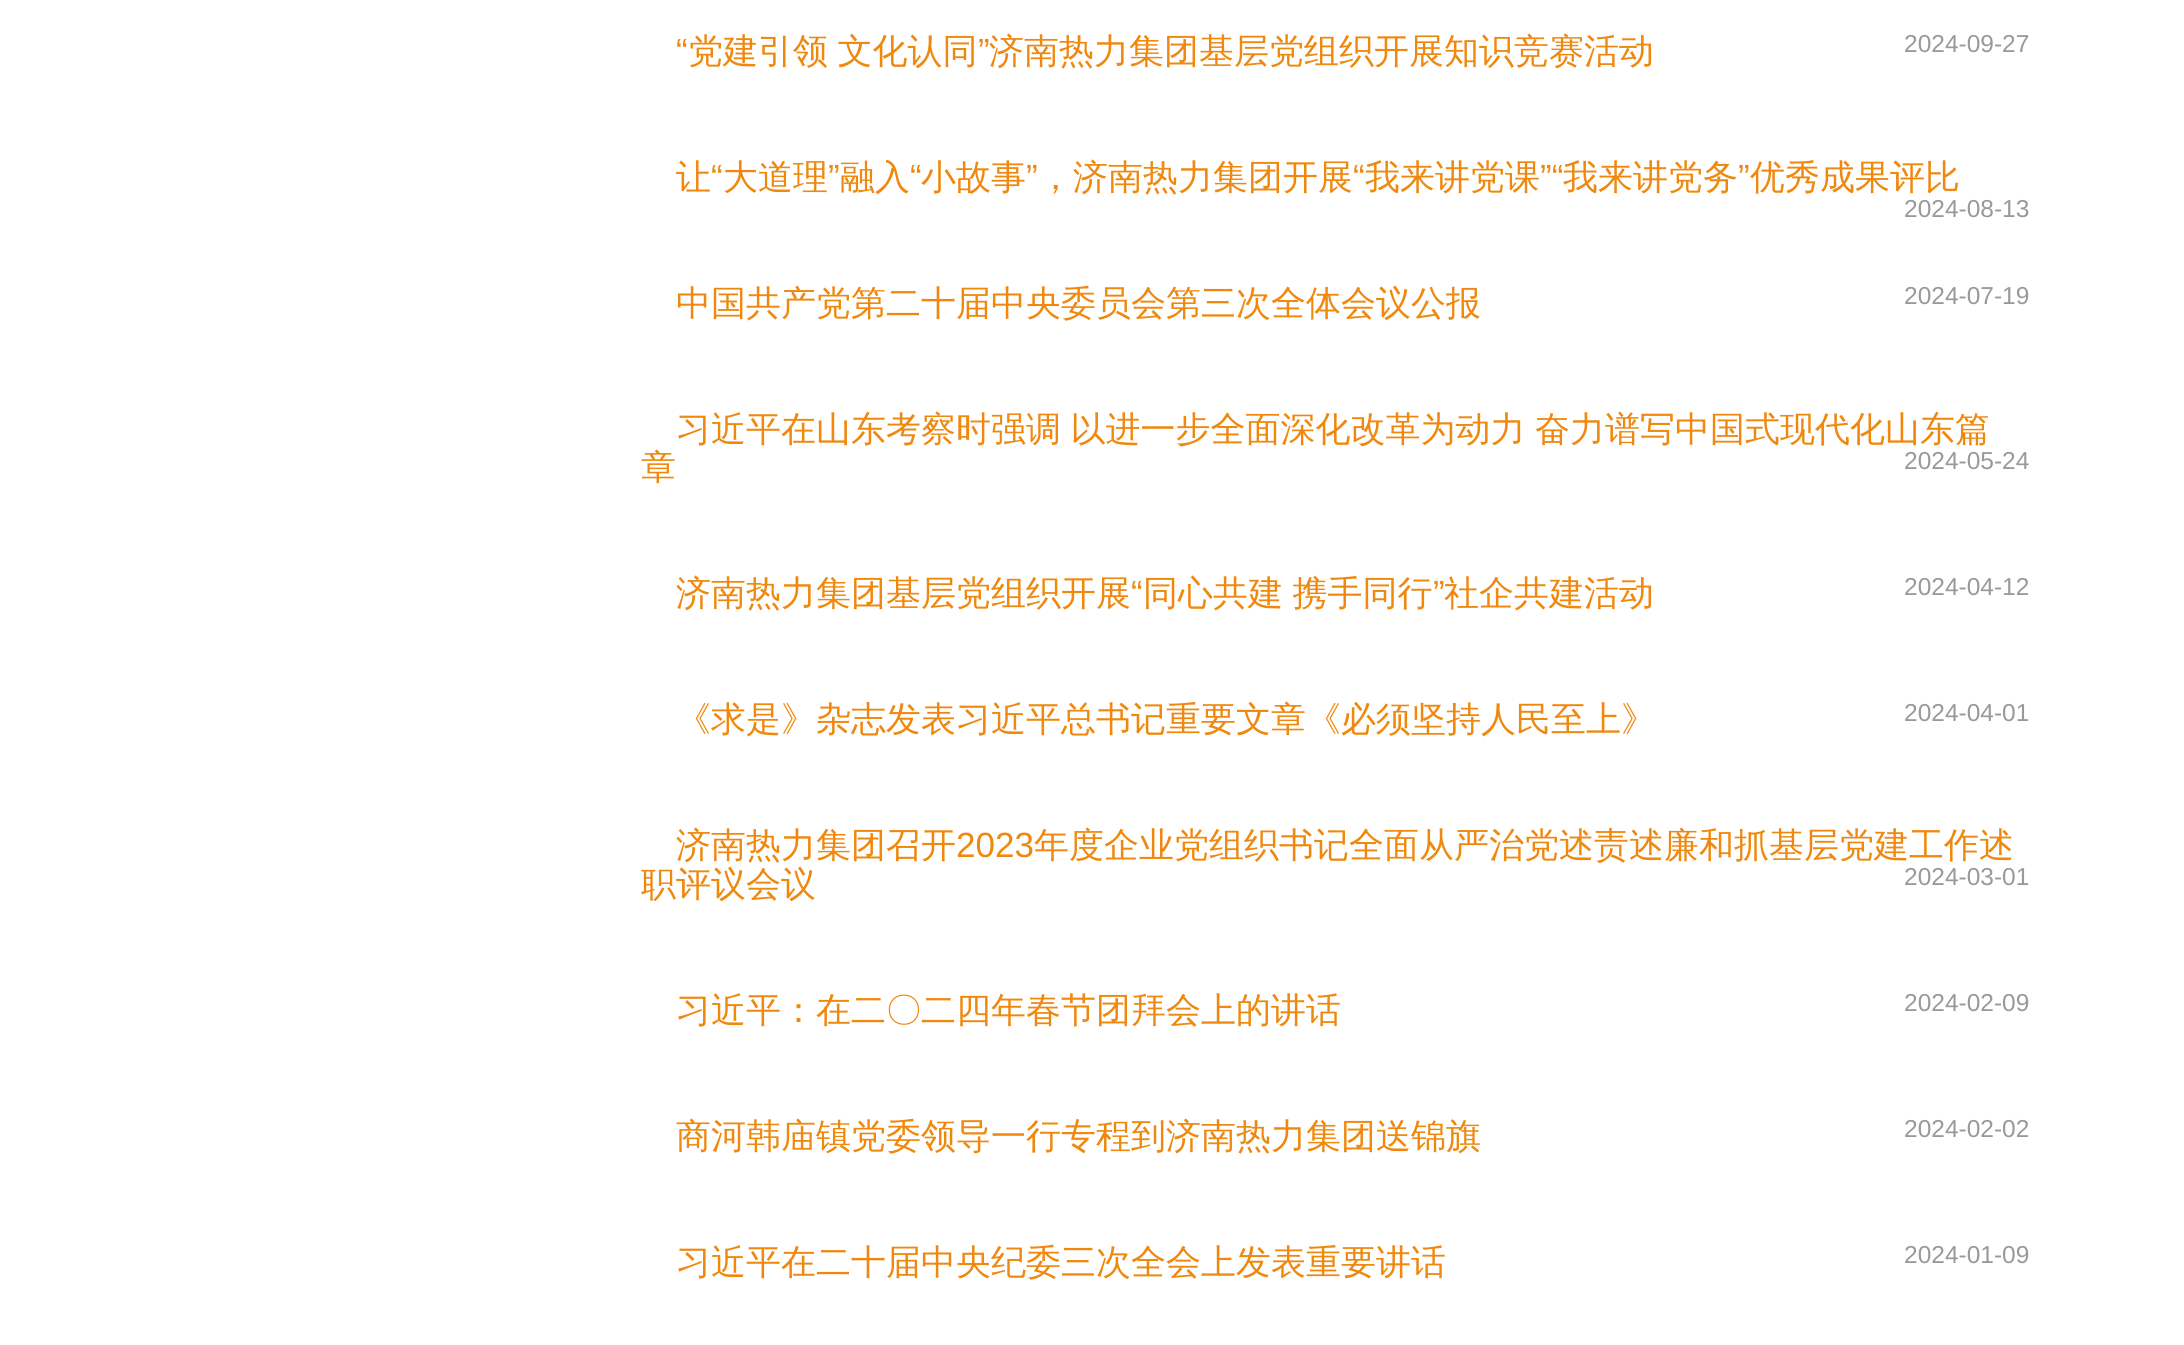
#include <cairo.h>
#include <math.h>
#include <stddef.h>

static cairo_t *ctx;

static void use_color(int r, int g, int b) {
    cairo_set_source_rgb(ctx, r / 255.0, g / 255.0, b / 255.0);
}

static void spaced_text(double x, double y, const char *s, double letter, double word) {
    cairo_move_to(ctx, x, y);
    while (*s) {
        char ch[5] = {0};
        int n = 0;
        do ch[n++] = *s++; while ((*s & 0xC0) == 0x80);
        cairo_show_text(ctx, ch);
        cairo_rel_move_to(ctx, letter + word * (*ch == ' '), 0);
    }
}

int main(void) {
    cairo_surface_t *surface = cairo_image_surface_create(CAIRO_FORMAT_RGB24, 2184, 1345);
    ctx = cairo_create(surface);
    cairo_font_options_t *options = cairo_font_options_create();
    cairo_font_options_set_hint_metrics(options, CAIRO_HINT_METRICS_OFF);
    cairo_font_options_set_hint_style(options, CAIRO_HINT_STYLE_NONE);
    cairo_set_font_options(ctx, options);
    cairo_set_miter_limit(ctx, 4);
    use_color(255, 255, 255);
    cairo_paint(ctx);
    cairo_select_font_face(ctx, "Liberation Sans", CAIRO_FONT_SLANT_NORMAL, CAIRO_FONT_WEIGHT_NORMAL);
    cairo_set_font_size(ctx, 35);
    use_color(240, 136, 14);
    cairo_move_to(ctx, 676, 63);
    cairo_show_text(ctx, "“");
    cairo_select_font_face(ctx, "WenQuanYi Zen Hei Medium", CAIRO_FONT_SLANT_NORMAL, CAIRO_FONT_WEIGHT_NORMAL);
    spaced_text(688, 63, "党建引领 文化认同", 0, -1);
    cairo_select_font_face(ctx, "Liberation Sans", CAIRO_FONT_SLANT_NORMAL, CAIRO_FONT_WEIGHT_NORMAL);
    cairo_move_to(ctx, 978, 63);
    cairo_show_text(ctx, "”");
    cairo_select_font_face(ctx, "WenQuanYi Zen Hei Medium", CAIRO_FONT_SLANT_NORMAL, CAIRO_FONT_WEIGHT_NORMAL);
    cairo_move_to(ctx, 989, 63);
    cairo_show_text(ctx, "济南热力集团基层党组织开展知识竞赛活动");
    cairo_select_font_face(ctx, "Liberation Sans", CAIRO_FONT_SLANT_NORMAL, CAIRO_FONT_WEIGHT_NORMAL);
    cairo_set_font_size(ctx, 24.5);
    use_color(153, 153, 153);
    cairo_move_to(ctx, 1904, 52);
    cairo_show_text(ctx, "2024-09-27");
    cairo_select_font_face(ctx, "WenQuanYi Zen Hei Medium", CAIRO_FONT_SLANT_NORMAL, CAIRO_FONT_WEIGHT_NORMAL);
    cairo_set_font_size(ctx, 35);
    use_color(240, 136, 14);
    cairo_move_to(ctx, 676, 189);
    cairo_show_text(ctx, "让");
    cairo_select_font_face(ctx, "Liberation Sans", CAIRO_FONT_SLANT_NORMAL, CAIRO_FONT_WEIGHT_NORMAL);
    cairo_move_to(ctx, 711, 189);
    cairo_show_text(ctx, "“");
    cairo_select_font_face(ctx, "WenQuanYi Zen Hei Medium", CAIRO_FONT_SLANT_NORMAL, CAIRO_FONT_WEIGHT_NORMAL);
    cairo_move_to(ctx, 723, 189);
    cairo_show_text(ctx, "大道理");
    cairo_select_font_face(ctx, "Liberation Sans", CAIRO_FONT_SLANT_NORMAL, CAIRO_FONT_WEIGHT_NORMAL);
    cairo_move_to(ctx, 828, 189);
    cairo_show_text(ctx, "”");
    cairo_select_font_face(ctx, "WenQuanYi Zen Hei Medium", CAIRO_FONT_SLANT_NORMAL, CAIRO_FONT_WEIGHT_NORMAL);
    cairo_move_to(ctx, 840, 189);
    cairo_show_text(ctx, "融入");
    cairo_select_font_face(ctx, "Liberation Sans", CAIRO_FONT_SLANT_NORMAL, CAIRO_FONT_WEIGHT_NORMAL);
    cairo_move_to(ctx, 910, 189);
    cairo_show_text(ctx, "“");
    cairo_select_font_face(ctx, "WenQuanYi Zen Hei Medium", CAIRO_FONT_SLANT_NORMAL, CAIRO_FONT_WEIGHT_NORMAL);
    cairo_move_to(ctx, 921, 189);
    cairo_show_text(ctx, "小故事");
    cairo_select_font_face(ctx, "Liberation Sans", CAIRO_FONT_SLANT_NORMAL, CAIRO_FONT_WEIGHT_NORMAL);
    cairo_move_to(ctx, 1026, 189);
    cairo_show_text(ctx, "”");
    cairo_select_font_face(ctx, "WenQuanYi Zen Hei Medium", CAIRO_FONT_SLANT_NORMAL, CAIRO_FONT_WEIGHT_NORMAL);
    cairo_move_to(ctx, 1038, 189);
    cairo_show_text(ctx, "，济南热力集团开展");
    cairo_select_font_face(ctx, "Liberation Sans", CAIRO_FONT_SLANT_NORMAL, CAIRO_FONT_WEIGHT_NORMAL);
    cairo_move_to(ctx, 1353, 189);
    cairo_show_text(ctx, "“");
    cairo_select_font_face(ctx, "WenQuanYi Zen Hei Medium", CAIRO_FONT_SLANT_NORMAL, CAIRO_FONT_WEIGHT_NORMAL);
    cairo_move_to(ctx, 1365, 189);
    cairo_show_text(ctx, "我来讲党课");
    cairo_select_font_face(ctx, "Liberation Sans", CAIRO_FONT_SLANT_NORMAL, CAIRO_FONT_WEIGHT_NORMAL);
    cairo_move_to(ctx, 1540, 189);
    cairo_show_text(ctx, "”“");
    cairo_select_font_face(ctx, "WenQuanYi Zen Hei Medium", CAIRO_FONT_SLANT_NORMAL, CAIRO_FONT_WEIGHT_NORMAL);
    cairo_move_to(ctx, 1563, 189);
    cairo_show_text(ctx, "我来讲党务");
    cairo_select_font_face(ctx, "Liberation Sans", CAIRO_FONT_SLANT_NORMAL, CAIRO_FONT_WEIGHT_NORMAL);
    cairo_move_to(ctx, 1738, 189);
    cairo_show_text(ctx, "”");
    cairo_select_font_face(ctx, "WenQuanYi Zen Hei Medium", CAIRO_FONT_SLANT_NORMAL, CAIRO_FONT_WEIGHT_NORMAL);
    cairo_move_to(ctx, 1750, 189);
    cairo_show_text(ctx, "优秀成果评比");
    cairo_select_font_face(ctx, "Liberation Sans", CAIRO_FONT_SLANT_NORMAL, CAIRO_FONT_WEIGHT_NORMAL);
    cairo_set_font_size(ctx, 24.5);
    use_color(153, 153, 153);
    cairo_move_to(ctx, 1904, 217);
    cairo_show_text(ctx, "2024-08-13");
    cairo_select_font_face(ctx, "WenQuanYi Zen Hei Medium", CAIRO_FONT_SLANT_NORMAL, CAIRO_FONT_WEIGHT_NORMAL);
    cairo_set_font_size(ctx, 35);
    use_color(240, 136, 14);
    cairo_move_to(ctx, 676, 315);
    cairo_show_text(ctx, "中国共产党第二十届中央委员会第三次全体会议公报");
    cairo_select_font_face(ctx, "Liberation Sans", CAIRO_FONT_SLANT_NORMAL, CAIRO_FONT_WEIGHT_NORMAL);
    cairo_set_font_size(ctx, 24.5);
    use_color(153, 153, 153);
    cairo_move_to(ctx, 1904, 304);
    cairo_show_text(ctx, "2024-07-19");
    cairo_select_font_face(ctx, "WenQuanYi Zen Hei Medium", CAIRO_FONT_SLANT_NORMAL, CAIRO_FONT_WEIGHT_NORMAL);
    cairo_set_font_size(ctx, 35);
    use_color(240, 136, 14);
    spaced_text(676, 441, "习近平在山东考察时强调 以进一步全面深化改革为动力 奋力谱写中国式现代化山东篇", 0, -1);
    cairo_move_to(ctx, 641, 479);
    cairo_show_text(ctx, "章");
    cairo_select_font_face(ctx, "Liberation Sans", CAIRO_FONT_SLANT_NORMAL, CAIRO_FONT_WEIGHT_NORMAL);
    cairo_set_font_size(ctx, 24.5);
    use_color(153, 153, 153);
    cairo_move_to(ctx, 1904, 469);
    cairo_show_text(ctx, "2024-05-24");
    cairo_select_font_face(ctx, "WenQuanYi Zen Hei Medium", CAIRO_FONT_SLANT_NORMAL, CAIRO_FONT_WEIGHT_NORMAL);
    cairo_set_font_size(ctx, 35);
    use_color(240, 136, 14);
    cairo_move_to(ctx, 676, 605);
    cairo_show_text(ctx, "济南热力集团基层党组织开展");
    cairo_select_font_face(ctx, "Liberation Sans", CAIRO_FONT_SLANT_NORMAL, CAIRO_FONT_WEIGHT_NORMAL);
    cairo_move_to(ctx, 1131, 605);
    cairo_show_text(ctx, "“");
    cairo_select_font_face(ctx, "WenQuanYi Zen Hei Medium", CAIRO_FONT_SLANT_NORMAL, CAIRO_FONT_WEIGHT_NORMAL);
    spaced_text(1143, 605, "同心共建 携手同行", 0, -1);
    cairo_select_font_face(ctx, "Liberation Sans", CAIRO_FONT_SLANT_NORMAL, CAIRO_FONT_WEIGHT_NORMAL);
    cairo_move_to(ctx, 1433, 605);
    cairo_show_text(ctx, "”");
    cairo_select_font_face(ctx, "WenQuanYi Zen Hei Medium", CAIRO_FONT_SLANT_NORMAL, CAIRO_FONT_WEIGHT_NORMAL);
    cairo_move_to(ctx, 1444, 605);
    cairo_show_text(ctx, "社企共建活动");
    cairo_select_font_face(ctx, "Liberation Sans", CAIRO_FONT_SLANT_NORMAL, CAIRO_FONT_WEIGHT_NORMAL);
    cairo_set_font_size(ctx, 24.5);
    use_color(153, 153, 153);
    cairo_move_to(ctx, 1904, 595);
    cairo_show_text(ctx, "2024-04-12");
    cairo_select_font_face(ctx, "WenQuanYi Zen Hei Medium", CAIRO_FONT_SLANT_NORMAL, CAIRO_FONT_WEIGHT_NORMAL);
    cairo_set_font_size(ctx, 35);
    use_color(240, 136, 14);
    cairo_move_to(ctx, 676, 731);
    cairo_show_text(ctx, "《求是》杂志发表习近平总书记重要文章《必须坚持人民至上》");
    cairo_select_font_face(ctx, "Liberation Sans", CAIRO_FONT_SLANT_NORMAL, CAIRO_FONT_WEIGHT_NORMAL);
    cairo_set_font_size(ctx, 24.5);
    use_color(153, 153, 153);
    cairo_move_to(ctx, 1904, 721);
    cairo_show_text(ctx, "2024-04-01");
    cairo_select_font_face(ctx, "WenQuanYi Zen Hei Medium", CAIRO_FONT_SLANT_NORMAL, CAIRO_FONT_WEIGHT_NORMAL);
    cairo_set_font_size(ctx, 35);
    use_color(240, 136, 14);
    cairo_move_to(ctx, 676, 857);
    cairo_show_text(ctx, "济南热力集团召开");
    cairo_select_font_face(ctx, "Liberation Sans", CAIRO_FONT_SLANT_NORMAL, CAIRO_FONT_WEIGHT_NORMAL);
    cairo_move_to(ctx, 956, 857);
    cairo_show_text(ctx, "2023");
    cairo_select_font_face(ctx, "WenQuanYi Zen Hei Medium", CAIRO_FONT_SLANT_NORMAL, CAIRO_FONT_WEIGHT_NORMAL);
    cairo_move_to(ctx, 1034, 857);
    cairo_show_text(ctx, "年度企业党组织书记全面从严治党述责述廉和抓基层党建工作述");
    cairo_move_to(ctx, 641, 896);
    cairo_show_text(ctx, "职评议会议");
    cairo_select_font_face(ctx, "Liberation Sans", CAIRO_FONT_SLANT_NORMAL, CAIRO_FONT_WEIGHT_NORMAL);
    cairo_set_font_size(ctx, 24.5);
    use_color(153, 153, 153);
    cairo_move_to(ctx, 1904, 885);
    cairo_show_text(ctx, "2024-03-01");
    cairo_select_font_face(ctx, "WenQuanYi Zen Hei Medium", CAIRO_FONT_SLANT_NORMAL, CAIRO_FONT_WEIGHT_NORMAL);
    cairo_set_font_size(ctx, 35);
    use_color(240, 136, 14);
    cairo_move_to(ctx, 676, 1022);
    cairo_show_text(ctx, "习近平：在二〇二四年春节团拜会上的讲话");
    cairo_select_font_face(ctx, "Liberation Sans", CAIRO_FONT_SLANT_NORMAL, CAIRO_FONT_WEIGHT_NORMAL);
    cairo_set_font_size(ctx, 24.5);
    use_color(153, 153, 153);
    cairo_move_to(ctx, 1904, 1011);
    cairo_show_text(ctx, "2024-02-09");
    cairo_select_font_face(ctx, "WenQuanYi Zen Hei Medium", CAIRO_FONT_SLANT_NORMAL, CAIRO_FONT_WEIGHT_NORMAL);
    cairo_set_font_size(ctx, 35);
    use_color(240, 136, 14);
    cairo_move_to(ctx, 676, 1148);
    cairo_show_text(ctx, "商河韩庙镇党委领导一行专程到济南热力集团送锦旗");
    cairo_select_font_face(ctx, "Liberation Sans", CAIRO_FONT_SLANT_NORMAL, CAIRO_FONT_WEIGHT_NORMAL);
    cairo_set_font_size(ctx, 24.5);
    use_color(153, 153, 153);
    cairo_move_to(ctx, 1904, 1137);
    cairo_show_text(ctx, "2024-02-02");
    cairo_select_font_face(ctx, "WenQuanYi Zen Hei Medium", CAIRO_FONT_SLANT_NORMAL, CAIRO_FONT_WEIGHT_NORMAL);
    cairo_set_font_size(ctx, 35);
    use_color(240, 136, 14);
    cairo_move_to(ctx, 676, 1274);
    cairo_show_text(ctx, "习近平在二十届中央纪委三次全会上发表重要讲话");
    cairo_select_font_face(ctx, "Liberation Sans", CAIRO_FONT_SLANT_NORMAL, CAIRO_FONT_WEIGHT_NORMAL);
    cairo_set_font_size(ctx, 24.5);
    use_color(153, 153, 153);
    cairo_move_to(ctx, 1904, 1263);
    cairo_show_text(ctx, "2024-01-09");
    cairo_surface_write_to_png(surface, "result.png");
    cairo_font_options_destroy(options);
    cairo_destroy(ctx);
    cairo_surface_destroy(surface);
    return 0;
}
